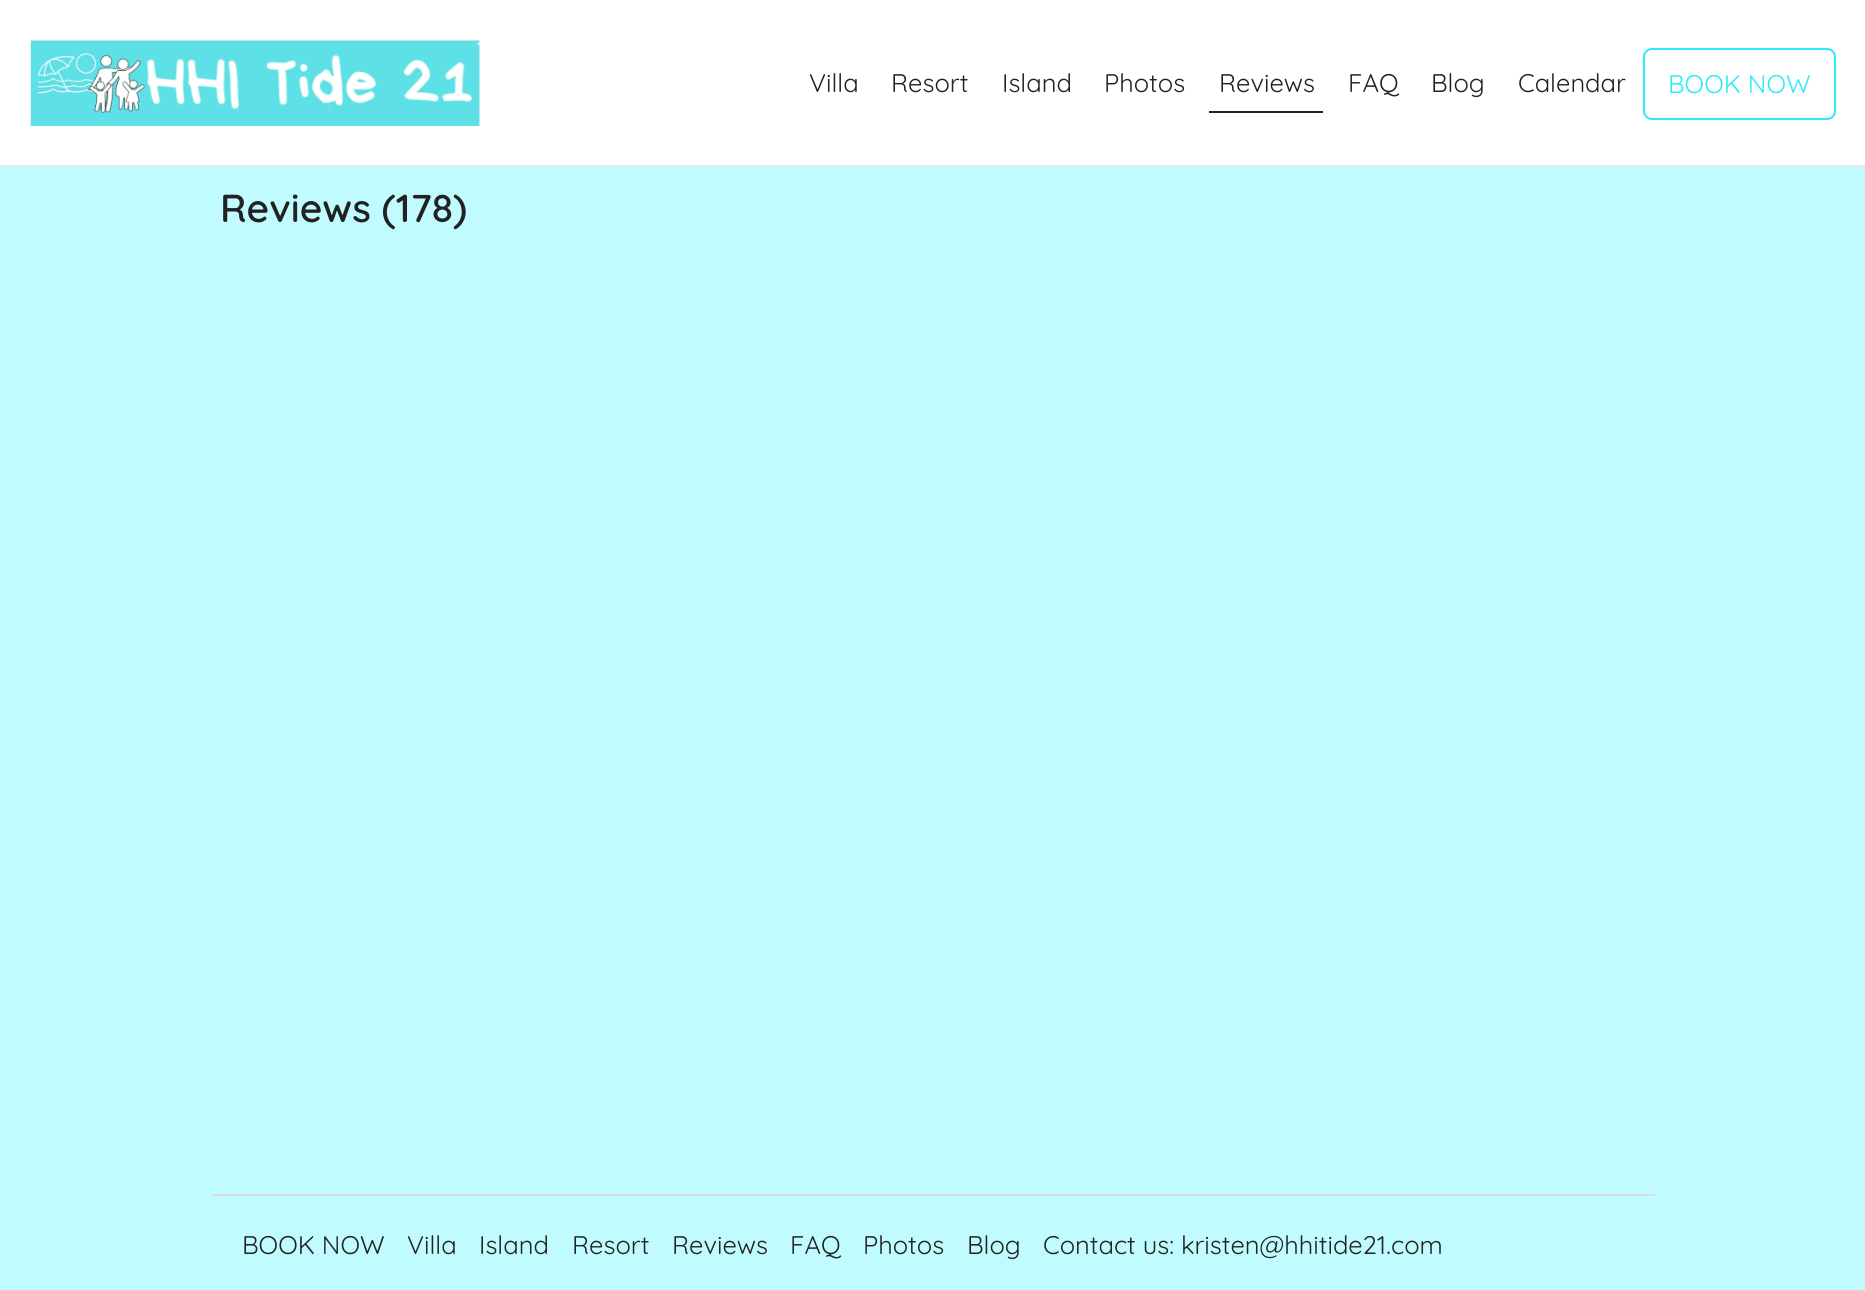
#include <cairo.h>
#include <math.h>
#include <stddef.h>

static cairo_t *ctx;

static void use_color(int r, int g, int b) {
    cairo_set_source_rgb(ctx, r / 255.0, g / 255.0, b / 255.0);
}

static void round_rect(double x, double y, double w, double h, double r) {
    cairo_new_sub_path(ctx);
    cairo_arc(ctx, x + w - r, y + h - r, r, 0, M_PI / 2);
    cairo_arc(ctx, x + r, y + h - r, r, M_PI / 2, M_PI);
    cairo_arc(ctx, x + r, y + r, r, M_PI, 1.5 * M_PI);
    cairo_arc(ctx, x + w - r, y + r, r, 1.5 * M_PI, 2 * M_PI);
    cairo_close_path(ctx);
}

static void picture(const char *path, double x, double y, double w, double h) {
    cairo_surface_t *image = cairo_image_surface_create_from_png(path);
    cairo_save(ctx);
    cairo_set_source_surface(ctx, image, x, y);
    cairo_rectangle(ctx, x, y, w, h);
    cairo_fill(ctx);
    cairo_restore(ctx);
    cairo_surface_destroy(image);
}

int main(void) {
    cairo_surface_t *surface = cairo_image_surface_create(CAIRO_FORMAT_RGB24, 1865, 1290);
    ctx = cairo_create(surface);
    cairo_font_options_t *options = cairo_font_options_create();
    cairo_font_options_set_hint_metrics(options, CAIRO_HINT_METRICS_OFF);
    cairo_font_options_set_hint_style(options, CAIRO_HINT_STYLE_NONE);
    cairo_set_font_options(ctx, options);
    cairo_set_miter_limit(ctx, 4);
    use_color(192, 252, 255);
    cairo_paint(ctx);
    use_color(255, 255, 255);
    cairo_rectangle(ctx, 0, 0, 1865, 165);
    cairo_fill(ctx);
    use_color(229, 231, 235);
    cairo_rectangle(ctx, 0, 165, 1865, 2);
    cairo_fill(ctx);
    picture("img1.png", 30, 40, 450, 86);
    cairo_select_font_face(ctx, "Quicksand", CAIRO_FONT_SLANT_NORMAL, CAIRO_FONT_WEIGHT_NORMAL);
    cairo_set_font_size(ctx, 25.5);
    use_color(34, 34, 34);
    cairo_move_to(ctx, 809, 92);
    cairo_show_text(ctx, "Villa");
    cairo_move_to(ctx, 891, 92);
    cairo_show_text(ctx, "Resort");
    cairo_move_to(ctx, 1002, 92);
    cairo_show_text(ctx, "Island");
    cairo_move_to(ctx, 1104, 92);
    cairo_show_text(ctx, "Photos");
    cairo_move_to(ctx, 1219, 92);
    cairo_show_text(ctx, "Reviews");
    cairo_rectangle(ctx, 1209, 111, 114, 2);
    cairo_fill(ctx);
    cairo_move_to(ctx, 1348, 92);
    cairo_show_text(ctx, "FAQ");
    cairo_move_to(ctx, 1431, 92);
    cairo_show_text(ctx, "Blog");
    cairo_move_to(ctx, 1518, 92);
    cairo_show_text(ctx, "Calendar");
    round_rect(1644, 49, 191, 70, 8);
    use_color(43, 235, 248);
    cairo_stroke(ctx);
    cairo_move_to(ctx, 1668, 93);
    cairo_show_text(ctx, "BOOK NOW");
    cairo_select_font_face(ctx, "Quicksand SemiBold", CAIRO_FONT_SLANT_NORMAL, CAIRO_FONT_WEIGHT_NORMAL);
    cairo_set_font_size(ctx, 39);
    use_color(34, 34, 34);
    cairo_move_to(ctx, 220, 222);
    cairo_show_text(ctx, "Reviews (178)");
    use_color(221, 221, 221);
    cairo_rectangle(ctx, 213, 1194, 1442, 2);
    cairo_fill(ctx);
    cairo_select_font_face(ctx, "Quicksand", CAIRO_FONT_SLANT_NORMAL, CAIRO_FONT_WEIGHT_NORMAL);
    cairo_set_font_size(ctx, 25.5);
    use_color(34, 34, 34);
    cairo_move_to(ctx, 242, 1254);
    cairo_show_text(ctx, "BOOK NOW");
    cairo_move_to(ctx, 407, 1254);
    cairo_show_text(ctx, "Villa");
    cairo_move_to(ctx, 479, 1254);
    cairo_show_text(ctx, "Island");
    cairo_move_to(ctx, 572, 1254);
    cairo_show_text(ctx, "Resort");
    cairo_move_to(ctx, 672, 1254);
    cairo_show_text(ctx, "Reviews");
    cairo_move_to(ctx, 790, 1254);
    cairo_show_text(ctx, "FAQ");
    cairo_move_to(ctx, 863, 1254);
    cairo_show_text(ctx, "Photos");
    cairo_move_to(ctx, 967, 1254);
    cairo_show_text(ctx, "Blog");
    cairo_move_to(ctx, 1043, 1254);
    cairo_show_text(ctx, "Contact us: kristen@hhitide21.com");
    cairo_surface_write_to_png(surface, "result.png");
    cairo_font_options_destroy(options);
    cairo_destroy(ctx);
    cairo_surface_destroy(surface);
    return 0;
}
